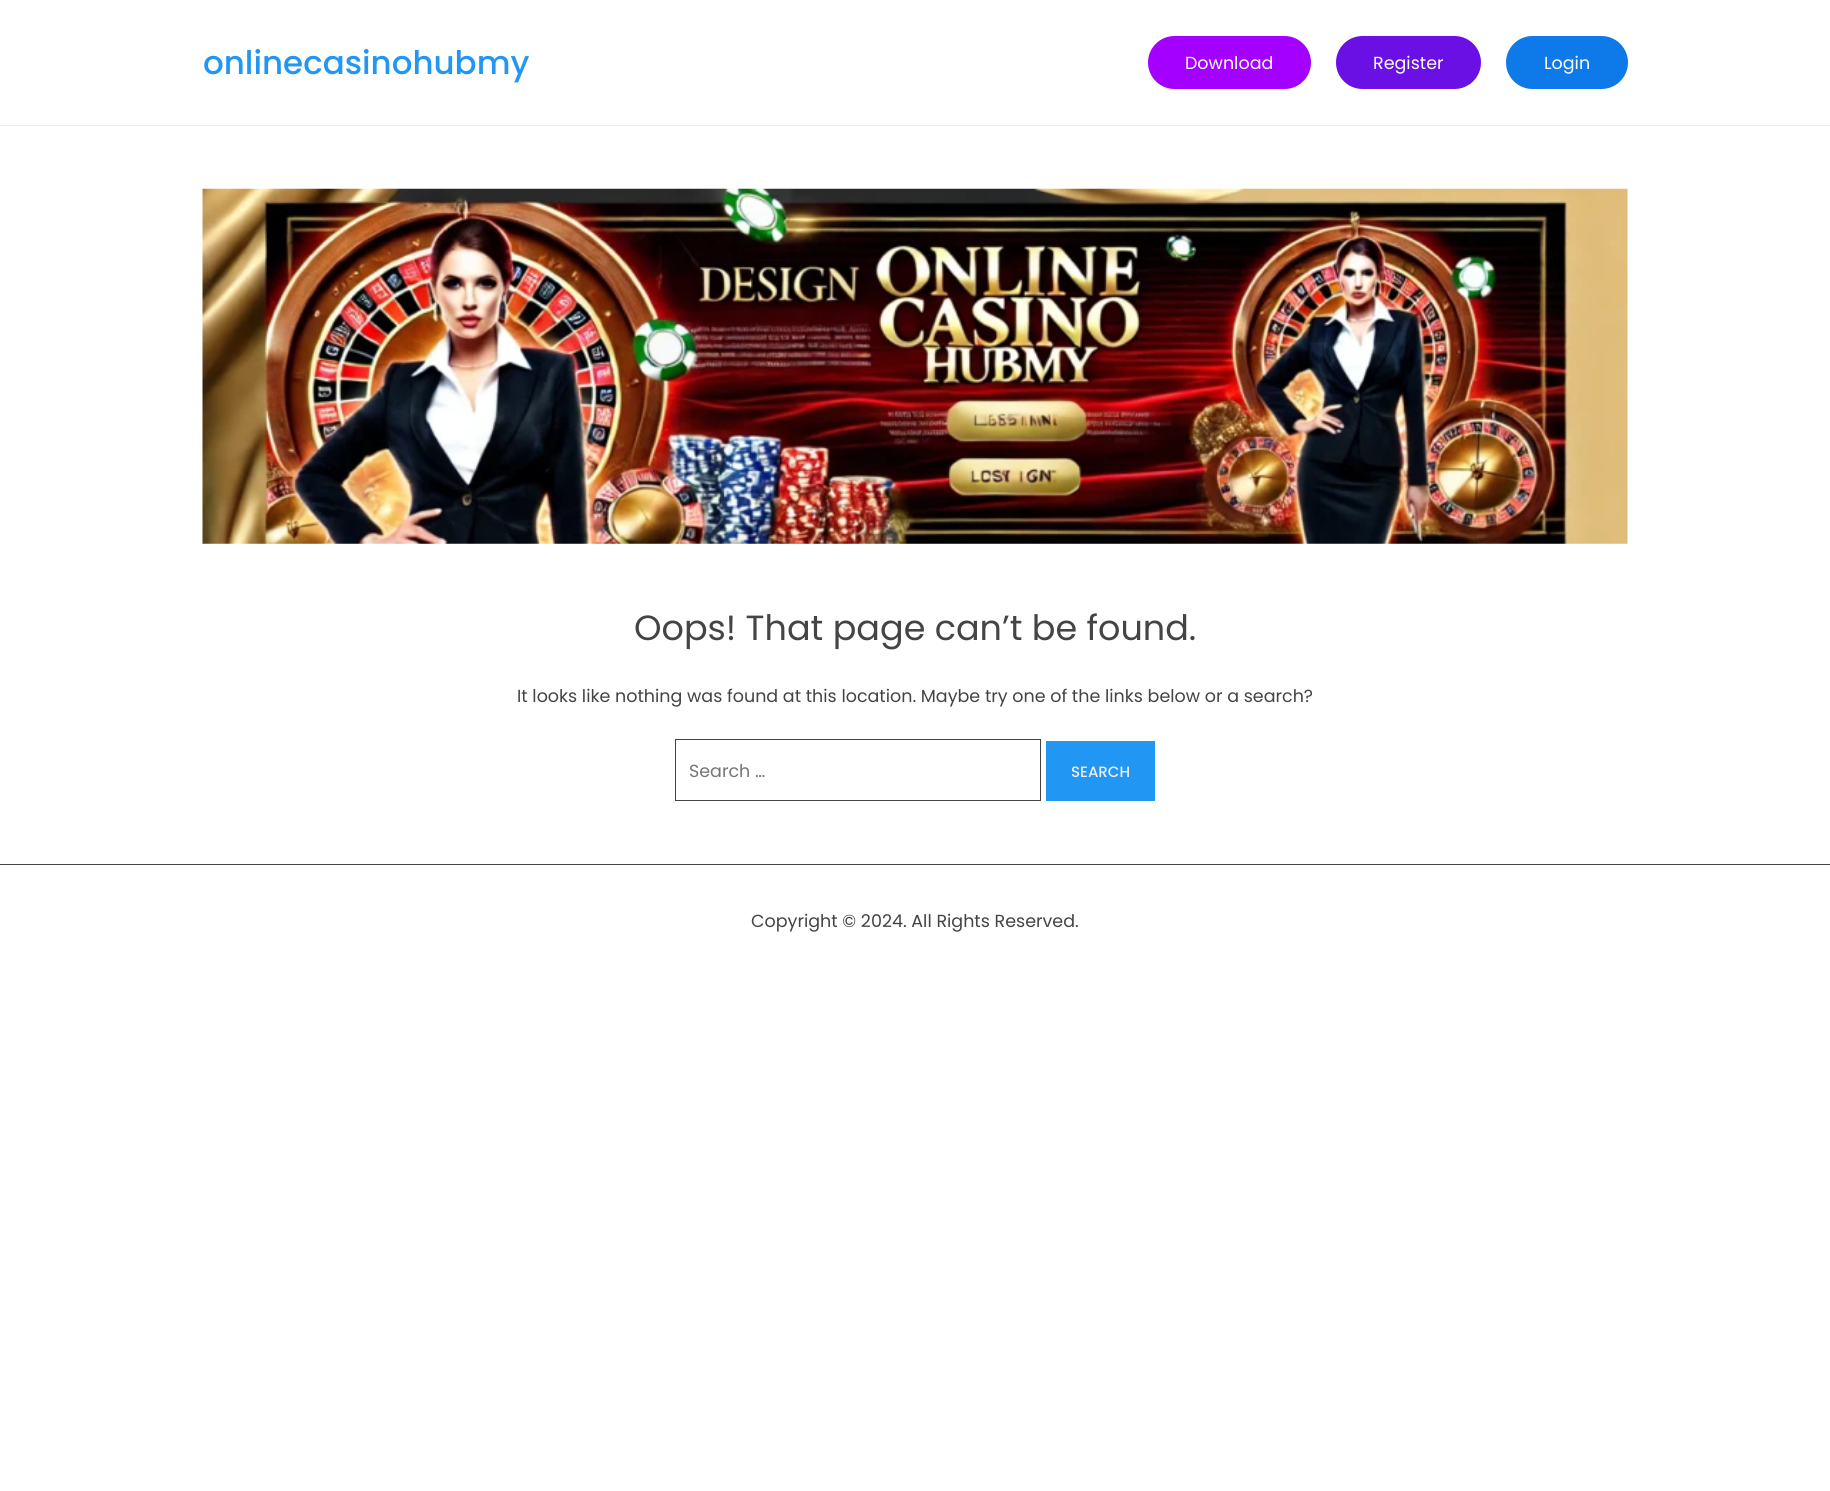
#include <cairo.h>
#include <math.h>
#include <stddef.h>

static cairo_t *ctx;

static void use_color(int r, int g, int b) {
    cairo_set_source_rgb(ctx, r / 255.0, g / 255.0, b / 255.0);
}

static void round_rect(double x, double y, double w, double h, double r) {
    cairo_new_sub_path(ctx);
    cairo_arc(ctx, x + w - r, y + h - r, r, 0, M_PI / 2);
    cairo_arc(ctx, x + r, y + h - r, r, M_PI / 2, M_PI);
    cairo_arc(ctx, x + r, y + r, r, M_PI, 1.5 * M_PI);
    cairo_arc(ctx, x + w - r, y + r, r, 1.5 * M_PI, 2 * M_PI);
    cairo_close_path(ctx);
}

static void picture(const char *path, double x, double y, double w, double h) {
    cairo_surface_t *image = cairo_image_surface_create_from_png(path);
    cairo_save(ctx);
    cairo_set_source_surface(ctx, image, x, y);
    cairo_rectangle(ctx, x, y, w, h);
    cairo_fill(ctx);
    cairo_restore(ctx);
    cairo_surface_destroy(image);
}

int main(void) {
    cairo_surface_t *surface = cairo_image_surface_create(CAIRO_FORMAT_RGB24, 1830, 1491);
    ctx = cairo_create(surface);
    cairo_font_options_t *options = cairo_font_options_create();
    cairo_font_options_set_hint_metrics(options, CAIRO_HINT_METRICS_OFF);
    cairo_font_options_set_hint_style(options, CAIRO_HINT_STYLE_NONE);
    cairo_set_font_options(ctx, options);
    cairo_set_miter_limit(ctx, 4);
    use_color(255, 255, 255);
    cairo_paint(ctx);
    use_color(236, 236, 236);
    cairo_rectangle(ctx, 0, 125, 1830, 1);
    cairo_fill(ctx);
    cairo_select_font_face(ctx, "Poppins Medium", CAIRO_FONT_SLANT_NORMAL, CAIRO_FONT_WEIGHT_NORMAL);
    cairo_set_font_size(ctx, 32.5);
    use_color(33, 150, 243);
    cairo_move_to(ctx, 203, 74);
    cairo_show_text(ctx, "onlinecasinohubmy");
    use_color(164, 0, 255);
    round_rect(1148, 36, 163, 53, 26.5);
    cairo_fill(ctx);
    cairo_select_font_face(ctx, "Poppins", CAIRO_FONT_SLANT_NORMAL, CAIRO_FONT_WEIGHT_NORMAL);
    cairo_set_font_size(ctx, 17.5);
    use_color(255, 255, 255);
    cairo_move_to(ctx, 1185, 69);
    cairo_show_text(ctx, "Download");
    use_color(107, 16, 229);
    round_rect(1336, 36, 145, 53, 26.5);
    cairo_fill(ctx);
    use_color(255, 255, 255);
    cairo_move_to(ctx, 1373, 69);
    cairo_show_text(ctx, "Register");
    use_color(14, 121, 232);
    round_rect(1506, 36, 122, 53, 26.5);
    cairo_fill(ctx);
    use_color(255, 255, 255);
    cairo_move_to(ctx, 1544, 69);
    cairo_show_text(ctx, "Login");
    picture("img1.png", 202, 188, 1426, 356);
    cairo_set_font_size(ctx, 35);
    use_color(68, 68, 68);
    cairo_move_to(ctx, 634, 640);
    cairo_show_text(ctx, "Oops! That page can’t be found.");
    cairo_set_font_size(ctx, 17.5);
    cairo_move_to(ctx, 517, 702);
    cairo_show_text(ctx, "It looks like nothing was found at this location. Maybe try one of the links below or a search?");
    cairo_rectangle(ctx, 675.5, 739.5, 365, 61);
    cairo_set_line_width(ctx, 1);
    cairo_stroke(ctx);
    use_color(117, 117, 117);
    cairo_move_to(ctx, 689, 777);
    cairo_show_text(ctx, "Search …");
    use_color(33, 150, 243);
    cairo_rectangle(ctx, 1046, 741, 109, 60);
    cairo_fill(ctx);
    cairo_select_font_face(ctx, "Poppins Medium", CAIRO_FONT_SLANT_NORMAL, CAIRO_FONT_WEIGHT_NORMAL);
    cairo_set_font_size(ctx, 15);
    use_color(238, 238, 238);
    cairo_move_to(ctx, 1071, 777);
    cairo_show_text(ctx, "SEARCH");
    use_color(68, 68, 68);
    cairo_rectangle(ctx, 0, 864, 1830, 1);
    cairo_fill(ctx);
    cairo_select_font_face(ctx, "Poppins", CAIRO_FONT_SLANT_NORMAL, CAIRO_FONT_WEIGHT_NORMAL);
    cairo_set_font_size(ctx, 17.5);
    cairo_move_to(ctx, 751, 927);
    cairo_show_text(ctx, "Copyright © 2024. All Rights Reserved.");
    cairo_surface_write_to_png(surface, "result.png");
    cairo_font_options_destroy(options);
    cairo_destroy(ctx);
    cairo_surface_destroy(surface);
    return 0;
}
